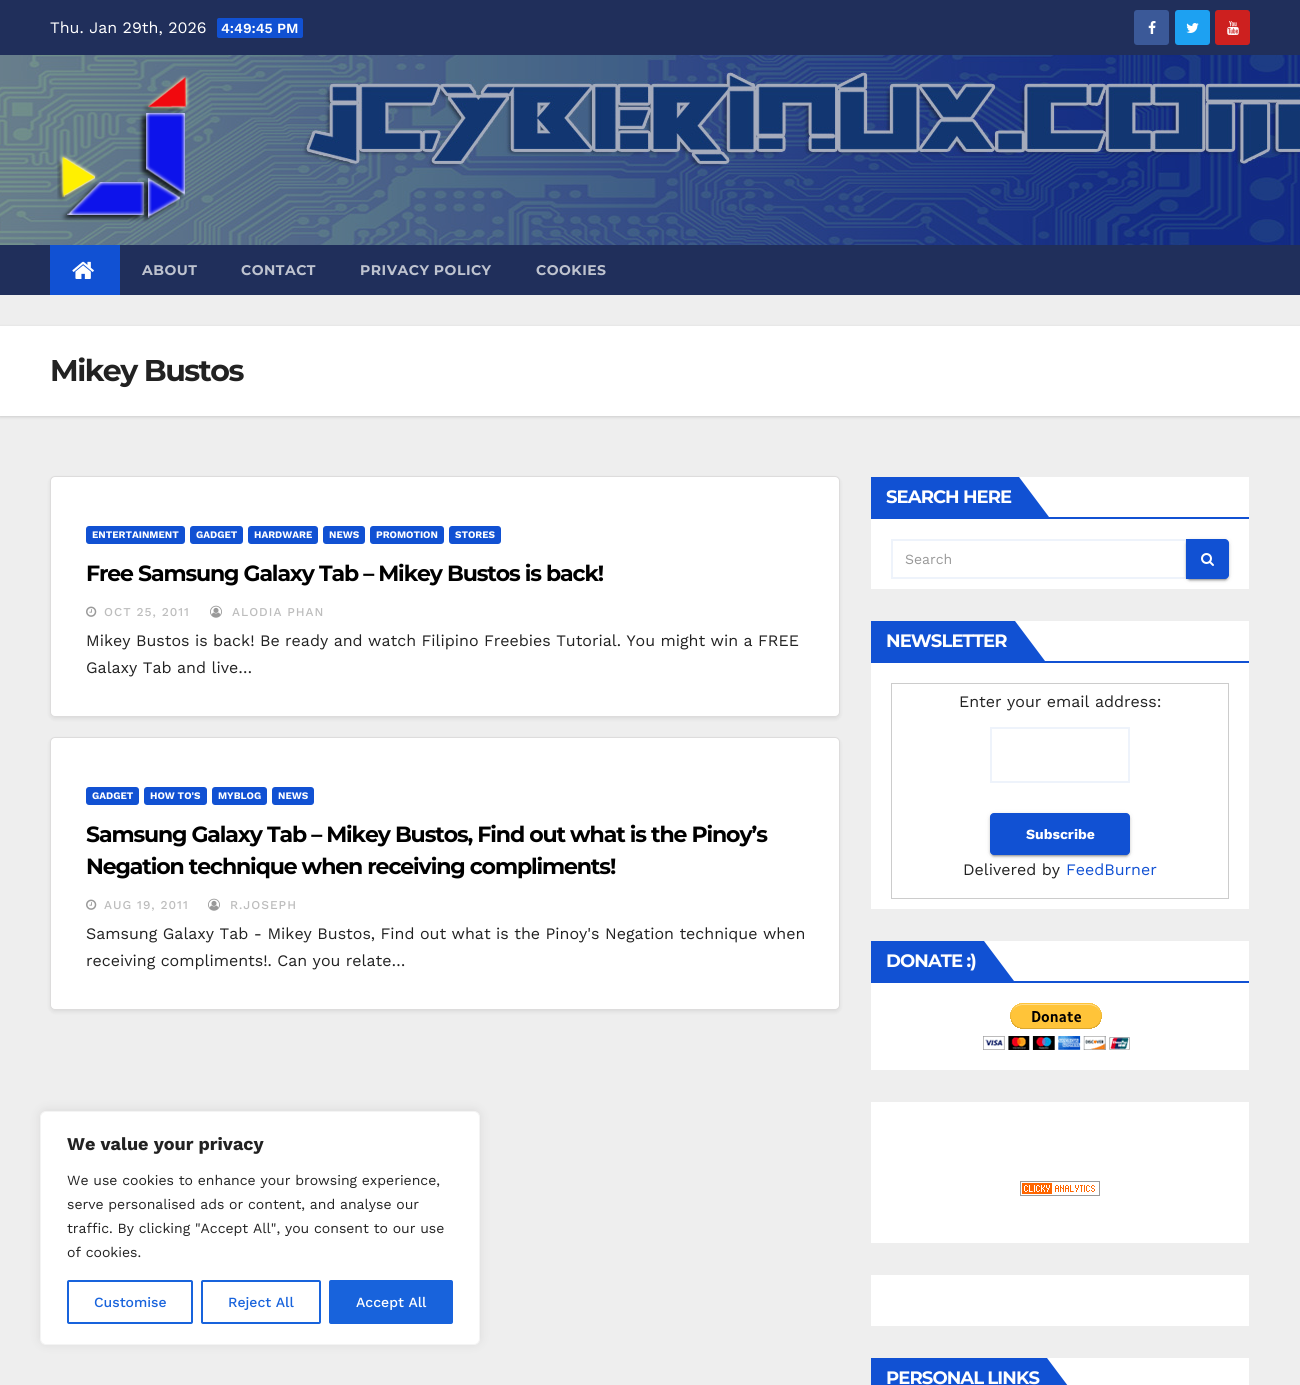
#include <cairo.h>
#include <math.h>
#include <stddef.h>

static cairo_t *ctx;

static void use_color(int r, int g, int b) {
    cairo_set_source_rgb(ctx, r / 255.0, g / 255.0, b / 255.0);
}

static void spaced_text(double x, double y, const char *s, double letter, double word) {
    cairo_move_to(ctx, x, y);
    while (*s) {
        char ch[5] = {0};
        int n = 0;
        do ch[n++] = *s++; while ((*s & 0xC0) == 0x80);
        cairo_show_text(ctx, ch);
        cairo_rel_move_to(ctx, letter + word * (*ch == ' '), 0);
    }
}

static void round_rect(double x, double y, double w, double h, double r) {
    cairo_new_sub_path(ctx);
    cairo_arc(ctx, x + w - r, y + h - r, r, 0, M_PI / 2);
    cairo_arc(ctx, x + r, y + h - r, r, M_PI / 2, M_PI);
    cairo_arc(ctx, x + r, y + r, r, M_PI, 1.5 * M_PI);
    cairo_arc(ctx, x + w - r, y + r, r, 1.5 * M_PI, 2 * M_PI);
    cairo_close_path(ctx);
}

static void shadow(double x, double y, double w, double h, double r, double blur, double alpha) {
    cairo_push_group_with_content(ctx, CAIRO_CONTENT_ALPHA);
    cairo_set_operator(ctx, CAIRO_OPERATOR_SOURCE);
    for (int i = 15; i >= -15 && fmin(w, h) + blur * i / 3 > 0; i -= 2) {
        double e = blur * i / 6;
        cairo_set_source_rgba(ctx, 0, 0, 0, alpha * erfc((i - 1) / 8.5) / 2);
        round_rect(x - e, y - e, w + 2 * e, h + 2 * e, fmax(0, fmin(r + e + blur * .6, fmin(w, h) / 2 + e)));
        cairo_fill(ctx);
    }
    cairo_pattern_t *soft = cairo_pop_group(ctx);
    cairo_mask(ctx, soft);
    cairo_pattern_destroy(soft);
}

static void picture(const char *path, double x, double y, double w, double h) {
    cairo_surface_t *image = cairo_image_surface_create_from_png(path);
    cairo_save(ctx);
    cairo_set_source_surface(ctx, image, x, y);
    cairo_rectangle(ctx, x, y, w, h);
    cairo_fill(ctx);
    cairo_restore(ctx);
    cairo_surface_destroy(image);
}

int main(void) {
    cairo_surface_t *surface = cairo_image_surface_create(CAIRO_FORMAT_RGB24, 1300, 1385);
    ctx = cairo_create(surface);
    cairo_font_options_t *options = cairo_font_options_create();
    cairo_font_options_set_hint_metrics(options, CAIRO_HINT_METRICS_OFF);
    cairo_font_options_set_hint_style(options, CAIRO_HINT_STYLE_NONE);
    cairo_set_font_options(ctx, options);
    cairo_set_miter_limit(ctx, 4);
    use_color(238, 238, 238);
    cairo_paint(ctx);
    use_color(32, 47, 91);
    cairo_rectangle(ctx, 0, 0, 1300, 55);
    cairo_fill(ctx);
    cairo_select_font_face(ctx, "Work Sans", CAIRO_FONT_SLANT_NORMAL, CAIRO_FONT_WEIGHT_NORMAL);
    cairo_set_font_size(ctx, 16);
    use_color(255, 255, 255);
    cairo_move_to(ctx, 50, 33);
    cairo_show_text(ctx, "Thu. Jan 29th, 2026");
    use_color(17, 81, 211);
    round_rect(217, 18, 86, 20, 2);
    cairo_fill(ctx);
    cairo_select_font_face(ctx, "Work Sans SemiBold", CAIRO_FONT_SLANT_NORMAL, CAIRO_FONT_WEIGHT_NORMAL);
    cairo_set_font_size(ctx, 14);
    use_color(255, 255, 255);
    cairo_move_to(ctx, 221, 33);
    cairo_show_text(ctx, "4:49:45 PM");
    use_color(59, 89, 152);
    round_rect(1134, 10, 35, 35, 3);
    cairo_fill(ctx);
    picture("img1.png", 1148, 21, 8, 13);
    use_color(29, 161, 242);
    round_rect(1175, 10, 35, 35, 3);
    cairo_fill(ctx);
    picture("img2.png", 1186, 23, 13, 10);
    use_color(205, 32, 31);
    round_rect(1215, 10, 35, 35, 3);
    cairo_fill(ctx);
    picture("img3.png", 1227, 21, 12, 14);
    picture("img4.png", 0, 55, 1300, 190);
    picture("img5.png", 57, 75, 133, 148);
    use_color(32, 47, 91);
    cairo_rectangle(ctx, 0, 245, 1300, 50);
    cairo_fill(ctx);
    use_color(17, 81, 211);
    cairo_rectangle(ctx, 50, 245, 70, 50);
    cairo_fill(ctx);
    picture("img6.png", 72, 261, 22, 18);
    cairo_select_font_face(ctx, "Montserrat", CAIRO_FONT_SLANT_NORMAL, CAIRO_FONT_WEIGHT_BOLD);
    use_color(190, 195, 207);
    spaced_text(142, 275, "ABOUT", 0.5, 0);
    spaced_text(241, 275, "CONTACT", 0.5, 0);
    spaced_text(360, 275, "PRIVACY POLICY", 0.5, 0);
    spaced_text(536, 275, "COOKIES", 0.5, 0);
    use_color(0, 0, 0);
    shadow(0, 327, 1300, 90, 0, 1.5, 0.15);
    use_color(255, 255, 255);
    cairo_rectangle(ctx, 0, 326, 1300, 90);
    cairo_fill(ctx);
    cairo_set_font_size(ctx, 30);
    use_color(34, 34, 34);
    spaced_text(50, 381, "Mikey Bustos", -1.5, 0);
    use_color(0, 0, 0);
    shadow(50, 478, 790, 241, 5, 2, 0.08);
    use_color(255, 255, 255);
    round_rect(50.5, 476.5, 789, 240, 4.5);
    cairo_fill_preserve(ctx);
    use_color(221, 220, 220);
    cairo_set_line_width(ctx, 1);
    cairo_stroke(ctx);
    use_color(17, 81, 211);
    round_rect(86, 526, 99, 18, 3);
    cairo_fill(ctx);
    cairo_select_font_face(ctx, "Work Sans", CAIRO_FONT_SLANT_NORMAL, CAIRO_FONT_WEIGHT_BOLD);
    cairo_set_font_size(ctx, 10);
    use_color(255, 255, 255);
    cairo_move_to(ctx, 92, 538);
    cairo_show_text(ctx, "ENTERTAINMENT");
    use_color(17, 81, 211);
    round_rect(190, 526, 53, 18, 3);
    cairo_fill(ctx);
    use_color(255, 255, 255);
    cairo_move_to(ctx, 196, 538);
    cairo_show_text(ctx, "GADGET");
    use_color(17, 81, 211);
    round_rect(248, 526, 70, 18, 3);
    cairo_fill(ctx);
    use_color(255, 255, 255);
    cairo_move_to(ctx, 254, 538);
    cairo_show_text(ctx, "HARDWARE");
    use_color(17, 81, 211);
    round_rect(323, 526, 42, 18, 3);
    cairo_fill(ctx);
    use_color(255, 255, 255);
    cairo_move_to(ctx, 329, 538);
    cairo_show_text(ctx, "NEWS");
    use_color(17, 81, 211);
    round_rect(370, 526, 74, 18, 3);
    cairo_fill(ctx);
    use_color(255, 255, 255);
    cairo_move_to(ctx, 376, 538);
    cairo_show_text(ctx, "PROMOTION");
    use_color(17, 81, 211);
    round_rect(449, 526, 52, 18, 3);
    cairo_fill(ctx);
    use_color(255, 255, 255);
    cairo_move_to(ctx, 455, 538);
    cairo_show_text(ctx, "STORES");
    cairo_select_font_face(ctx, "Montserrat", CAIRO_FONT_SLANT_NORMAL, CAIRO_FONT_WEIGHT_BOLD);
    cairo_set_font_size(ctx, 22);
    use_color(0, 0, 0);
    spaced_text(86, 581, "Free Samsung Galaxy Tab – Mikey Bustos is back!", -1.1, 0);
    picture("img7.png", 86, 606, 11, 11);
    cairo_select_font_face(ctx, "Work Sans Medium", CAIRO_FONT_SLANT_NORMAL, CAIRO_FONT_WEIGHT_NORMAL);
    cairo_set_font_size(ctx, 12);
    use_color(189, 189, 189);
    spaced_text(104, 616, "OCT 25, 2011", 1, 0);
    picture("img8.png", 210, 605, 12, 13);
    spaced_text(232, 616, "ALODIA PHAN", 1, 0);
    cairo_select_font_face(ctx, "Work Sans", CAIRO_FONT_SLANT_NORMAL, CAIRO_FONT_WEIGHT_NORMAL);
    cairo_set_font_size(ctx, 16);
    use_color(34, 34, 34);
    cairo_move_to(ctx, 86, 646);
    cairo_show_text(ctx, "Mikey Bustos is back! Be ready and watch Filipino Freebies Tutorial. You might win a FREE");
    cairo_move_to(ctx, 86, 673);
    cairo_show_text(ctx, "Galaxy Tab and live…");
    use_color(0, 0, 0);
    shadow(50, 739, 790, 273, 5, 2, 0.08);
    use_color(255, 255, 255);
    round_rect(50.5, 737.5, 789, 272, 4.5);
    cairo_fill_preserve(ctx);
    use_color(221, 220, 220);
    cairo_stroke(ctx);
    use_color(17, 81, 211);
    round_rect(86, 787, 53, 18, 3);
    cairo_fill(ctx);
    cairo_select_font_face(ctx, "Work Sans", CAIRO_FONT_SLANT_NORMAL, CAIRO_FONT_WEIGHT_BOLD);
    cairo_set_font_size(ctx, 10);
    use_color(255, 255, 255);
    cairo_move_to(ctx, 92, 799);
    cairo_show_text(ctx, "GADGET");
    use_color(17, 81, 211);
    round_rect(144, 787, 63, 18, 3);
    cairo_fill(ctx);
    use_color(255, 255, 255);
    cairo_move_to(ctx, 150, 799);
    cairo_show_text(ctx, "HOW TO'S");
    use_color(17, 81, 211);
    round_rect(212, 787, 55, 18, 3);
    cairo_fill(ctx);
    use_color(255, 255, 255);
    cairo_move_to(ctx, 218, 799);
    cairo_show_text(ctx, "MYBLOG");
    use_color(17, 81, 211);
    round_rect(272, 787, 42, 18, 3);
    cairo_fill(ctx);
    use_color(255, 255, 255);
    cairo_move_to(ctx, 278, 799);
    cairo_show_text(ctx, "NEWS");
    cairo_select_font_face(ctx, "Montserrat", CAIRO_FONT_SLANT_NORMAL, CAIRO_FONT_WEIGHT_BOLD);
    cairo_set_font_size(ctx, 22);
    use_color(0, 0, 0);
    spaced_text(86, 842, "Samsung Galaxy Tab – Mikey Bustos, Find out what is the Pinoy’s", -1.1, 0);
    spaced_text(86, 874, "Negation technique when receiving compliments!", -1.1, 0);
    picture("img7.png", 86, 899, 11, 11);
    cairo_select_font_face(ctx, "Work Sans Medium", CAIRO_FONT_SLANT_NORMAL, CAIRO_FONT_WEIGHT_NORMAL);
    cairo_set_font_size(ctx, 12);
    use_color(189, 189, 189);
    spaced_text(104, 909, "AUG 19, 2011", 1, 0);
    picture("img8.png", 208, 898, 12, 13);
    spaced_text(230, 909, "R.JOSEPH", 1, 0);
    cairo_select_font_face(ctx, "Work Sans", CAIRO_FONT_SLANT_NORMAL, CAIRO_FONT_WEIGHT_NORMAL);
    cairo_set_font_size(ctx, 16);
    use_color(34, 34, 34);
    cairo_move_to(ctx, 86, 939);
    cairo_show_text(ctx, "Samsung Galaxy Tab - Mikey Bustos, Find out what is the Pinoy's Negation technique when");
    cairo_move_to(ctx, 86, 966);
    cairo_show_text(ctx, "receiving compliments!. Can you relate…");
    use_color(255, 255, 255);
    cairo_rectangle(ctx, 871, 477, 378, 112);
    cairo_fill(ctx);
    use_color(17, 81, 211);
    cairo_rectangle(ctx, 871, 517, 378, 2);
    cairo_fill(ctx);
    cairo_rectangle(ctx, 871, 477, 148, 40);
    cairo_fill(ctx);
    cairo_select_font_face(ctx, "Montserrat", CAIRO_FONT_SLANT_NORMAL, CAIRO_FONT_WEIGHT_BOLD);
    cairo_set_font_size(ctx, 18);
    use_color(255, 255, 255);
    spaced_text(886, 503, "SEARCH HERE", -0.9, 0);
    use_color(17, 81, 211);
    cairo_new_path(ctx);
    cairo_move_to(ctx, 1019, 517);
    cairo_line_to(ctx, 1019, 477);
    cairo_line_to(ctx, 1049, 517);
    cairo_close_path(ctx);
    cairo_fill(ctx);
    cairo_rectangle(ctx, 892, 540, 294, 38);
    use_color(238, 243, 251);
    cairo_set_line_width(ctx, 2);
    cairo_stroke(ctx);
    cairo_select_font_face(ctx, "Work Sans", CAIRO_FONT_SLANT_NORMAL, CAIRO_FONT_WEIGHT_NORMAL);
    cairo_set_font_size(ctx, 14);
    use_color(153, 153, 153);
    cairo_move_to(ctx, 905, 564);
    cairo_show_text(ctx, "Search");
    use_color(0, 0, 0);
    shadow(1186, 540, 43, 40, 4, 2.5, 0.12);
    shadow(1188, 544, 39, 36, 2, 0.5, 0.2);
    shadow(1186, 541, 43, 40, 4, 1, 0.14);
    use_color(17, 81, 211);
    cairo_new_path(ctx);
    cairo_move_to(ctx, 1186, 539);
    cairo_line_to(ctx, 1225, 539);
    cairo_curve_to(ctx, 1227, 539, 1229, 541, 1229, 543);
    cairo_line_to(ctx, 1229, 575);
    cairo_curve_to(ctx, 1229, 577, 1227, 579, 1225, 579);
    cairo_line_to(ctx, 1186, 579);
    cairo_close_path(ctx);
    cairo_fill(ctx);
    picture("img9.png", 1201, 553, 13, 13);
    use_color(255, 255, 255);
    cairo_rectangle(ctx, 871, 621, 378, 288);
    cairo_fill(ctx);
    use_color(17, 81, 211);
    cairo_rectangle(ctx, 871, 661, 378, 2);
    cairo_fill(ctx);
    cairo_rectangle(ctx, 871, 621, 144, 40);
    cairo_fill(ctx);
    cairo_select_font_face(ctx, "Montserrat", CAIRO_FONT_SLANT_NORMAL, CAIRO_FONT_WEIGHT_BOLD);
    cairo_set_font_size(ctx, 18);
    use_color(255, 255, 255);
    spaced_text(886, 647, "NEWSLETTER", -0.9, 0);
    use_color(17, 81, 211);
    cairo_new_path(ctx);
    cairo_move_to(ctx, 1015, 661);
    cairo_line_to(ctx, 1015, 621);
    cairo_line_to(ctx, 1045, 661);
    cairo_close_path(ctx);
    cairo_fill(ctx);
    cairo_rectangle(ctx, 891.5, 683.5, 337, 215);
    use_color(204, 204, 204);
    cairo_set_line_width(ctx, 1);
    cairo_stroke(ctx);
    cairo_select_font_face(ctx, "Work Sans", CAIRO_FONT_SLANT_NORMAL, CAIRO_FONT_WEIGHT_NORMAL);
    cairo_set_font_size(ctx, 16);
    use_color(34, 34, 34);
    cairo_move_to(ctx, 959, 707);
    cairo_show_text(ctx, "Enter your email address:");
    cairo_rectangle(ctx, 991, 728, 138, 54);
    use_color(238, 243, 251);
    cairo_set_line_width(ctx, 2);
    cairo_stroke(ctx);
    use_color(0, 0, 0);
    shadow(990, 814, 140, 42, 4, 2.5, 0.12);
    shadow(992, 818, 136, 38, 2, 0.5, 0.2);
    shadow(990, 815, 140, 42, 4, 1, 0.14);
    use_color(17, 81, 211);
    round_rect(990.5, 813.5, 139, 41, 3.5);
    cairo_fill_preserve(ctx);
    cairo_set_line_width(ctx, 1);
    cairo_stroke(ctx);
    cairo_select_font_face(ctx, "Work Sans", CAIRO_FONT_SLANT_NORMAL, CAIRO_FONT_WEIGHT_BOLD);
    cairo_set_font_size(ctx, 14);
    use_color(255, 255, 255);
    cairo_move_to(ctx, 1026, 839);
    cairo_show_text(ctx, "Subscribe");
    cairo_select_font_face(ctx, "Work Sans", CAIRO_FONT_SLANT_NORMAL, CAIRO_FONT_WEIGHT_NORMAL);
    cairo_set_font_size(ctx, 16);
    use_color(34, 34, 34);
    cairo_move_to(ctx, 963, 875);
    cairo_show_text(ctx, "Delivered by");
    use_color(17, 81, 211);
    cairo_move_to(ctx, 1066, 875);
    cairo_show_text(ctx, "FeedBurner");
    use_color(255, 255, 255);
    cairo_rectangle(ctx, 871, 941, 378, 129);
    cairo_fill(ctx);
    use_color(17, 81, 211);
    cairo_rectangle(ctx, 871, 981, 378, 2);
    cairo_fill(ctx);
    cairo_rectangle(ctx, 871, 941, 113, 40);
    cairo_fill(ctx);
    cairo_select_font_face(ctx, "Montserrat", CAIRO_FONT_SLANT_NORMAL, CAIRO_FONT_WEIGHT_BOLD);
    cairo_set_font_size(ctx, 18);
    use_color(255, 255, 255);
    spaced_text(886, 967, "DONATE :)", -0.9, 0);
    use_color(17, 81, 211);
    cairo_new_path(ctx);
    cairo_move_to(ctx, 984, 981);
    cairo_line_to(ctx, 984, 941);
    cairo_line_to(ctx, 1014, 981);
    cairo_close_path(ctx);
    cairo_fill(ctx);
    picture("img10.png", 983, 1003, 147, 47);
    use_color(255, 255, 255);
    cairo_rectangle(ctx, 871, 1102, 378, 141);
    cairo_fill(ctx);
    picture("img11.png", 1020, 1181, 80, 15);
    cairo_rectangle(ctx, 871, 1275, 378, 51);
    cairo_fill(ctx);
    cairo_rectangle(ctx, 1047, 1358, 202, 27);
    cairo_fill(ctx);
    use_color(17, 81, 211);
    cairo_rectangle(ctx, 871, 1358, 176, 27);
    cairo_fill(ctx);
    use_color(255, 255, 255);
    spaced_text(886, 1384, "PERSONAL LINKS", -0.9, 0);
    use_color(17, 81, 211);
    cairo_new_path(ctx);
    cairo_move_to(ctx, 1047, 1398);
    cairo_line_to(ctx, 1047, 1358);
    cairo_line_to(ctx, 1077, 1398);
    cairo_close_path(ctx);
    cairo_fill(ctx);
    use_color(172, 171, 171);
    shadow(40, 1110, 440, 234, 6, 5, 0.3);
    use_color(255, 255, 255);
    round_rect(40.5, 1111.5, 439, 233, 5.5);
    cairo_fill_preserve(ctx);
    use_color(244, 244, 244);
    cairo_stroke(ctx);
    cairo_select_font_face(ctx, "Work Sans", CAIRO_FONT_SLANT_NORMAL, CAIRO_FONT_WEIGHT_BOLD);
    use_color(34, 34, 34);
    cairo_move_to(ctx, 67, 1150);
    cairo_show_text(ctx, "We value your privacy");
    cairo_select_font_face(ctx, "Work Sans", CAIRO_FONT_SLANT_NORMAL, CAIRO_FONT_WEIGHT_NORMAL);
    cairo_set_font_size(ctx, 14);
    cairo_move_to(ctx, 67, 1185);
    cairo_show_text(ctx, "We use cookies to enhance your browsing experience,");
    cairo_move_to(ctx, 67, 1209);
    cairo_show_text(ctx, "serve personalised ads or content, and analyse our");
    cairo_move_to(ctx, 67, 1233);
    cairo_show_text(ctx, "traffic. By clicking \"Accept All\", you consent to our use");
    cairo_move_to(ctx, 67, 1257);
    cairo_show_text(ctx, "of cookies.");
    round_rect(68, 1281, 124, 42, 1);
    use_color(24, 99, 220);
    cairo_set_line_width(ctx, 2);
    cairo_stroke(ctx);
    cairo_select_font_face(ctx, "Work Sans Medium", CAIRO_FONT_SLANT_NORMAL, CAIRO_FONT_WEIGHT_NORMAL);
    cairo_move_to(ctx, 94, 1307);
    cairo_show_text(ctx, "Customise");
    round_rect(202, 1281, 118, 42, 1);
    cairo_stroke(ctx);
    cairo_move_to(ctx, 228, 1307);
    cairo_show_text(ctx, "Reject All");
    round_rect(330, 1281, 122, 42, 1);
    cairo_fill_preserve(ctx);
    cairo_stroke(ctx);
    use_color(255, 255, 255);
    cairo_move_to(ctx, 356, 1307);
    cairo_show_text(ctx, "Accept All");
    cairo_surface_write_to_png(surface, "result.png");
    cairo_font_options_destroy(options);
    cairo_destroy(ctx);
    cairo_surface_destroy(surface);
    return 0;
}
